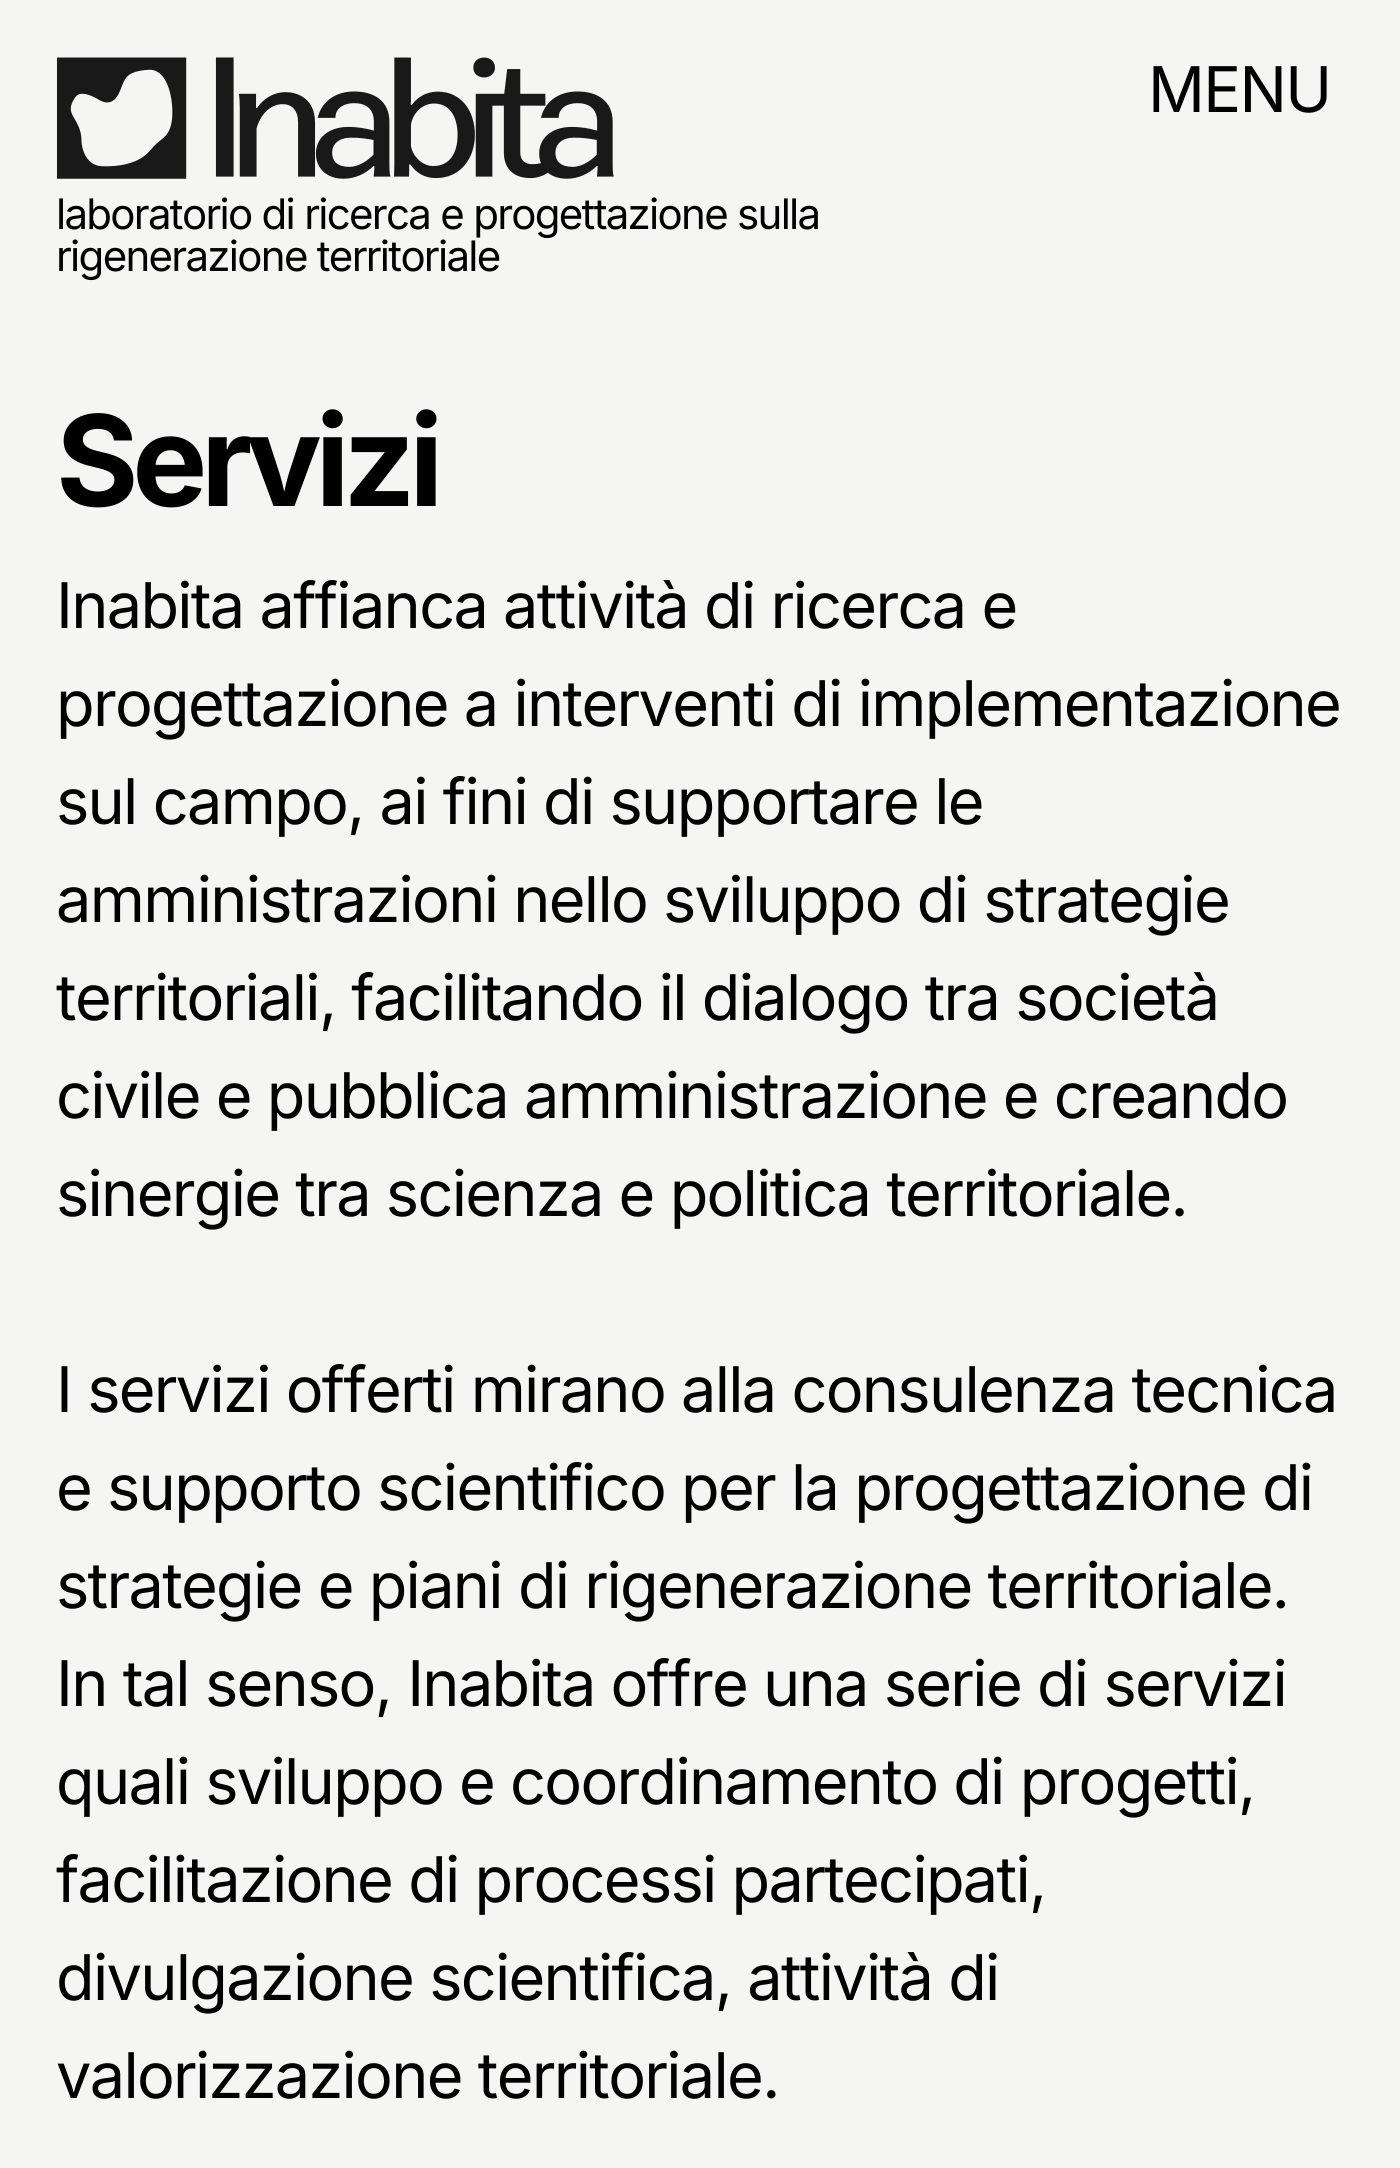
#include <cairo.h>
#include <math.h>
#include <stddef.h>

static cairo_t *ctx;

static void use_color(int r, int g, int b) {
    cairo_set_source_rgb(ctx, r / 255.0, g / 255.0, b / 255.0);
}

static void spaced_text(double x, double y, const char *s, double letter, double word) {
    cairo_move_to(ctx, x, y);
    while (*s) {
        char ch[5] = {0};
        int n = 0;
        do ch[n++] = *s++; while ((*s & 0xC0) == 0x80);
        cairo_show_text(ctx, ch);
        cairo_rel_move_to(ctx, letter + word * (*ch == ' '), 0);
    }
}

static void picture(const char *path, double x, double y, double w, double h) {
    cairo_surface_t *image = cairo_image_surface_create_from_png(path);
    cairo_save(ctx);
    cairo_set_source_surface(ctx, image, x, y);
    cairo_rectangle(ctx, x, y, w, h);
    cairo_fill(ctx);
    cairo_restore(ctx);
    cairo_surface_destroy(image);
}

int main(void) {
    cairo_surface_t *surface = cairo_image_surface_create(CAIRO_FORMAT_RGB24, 1400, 2168);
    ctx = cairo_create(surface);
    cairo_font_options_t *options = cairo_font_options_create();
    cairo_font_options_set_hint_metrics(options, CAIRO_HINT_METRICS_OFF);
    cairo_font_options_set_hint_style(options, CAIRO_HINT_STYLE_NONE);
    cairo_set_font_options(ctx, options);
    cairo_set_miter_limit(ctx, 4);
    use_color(245, 245, 243);
    cairo_paint(ctx);
    picture("img1.png", 56, 57, 558, 122);
    cairo_select_font_face(ctx, "Inter", CAIRO_FONT_SLANT_NORMAL, CAIRO_FONT_WEIGHT_NORMAL);
    cairo_set_font_size(ctx, 63);
    use_color(0, 0, 0);
    spaced_text(1148, 112, "MENU", -1.7, 0);
    cairo_set_font_size(ctx, 42);
    spaced_text(56, 229, "laboratorio di ricerca e progettazione sulla", -1.7, 0);
    spaced_text(56, 271, "rigenerazione territoriale", -1.7, 0);
    cairo_select_font_face(ctx, "Inter", CAIRO_FONT_SLANT_NORMAL, CAIRO_FONT_WEIGHT_BOLD);
    cairo_set_font_size(ctx, 126);
    spaced_text(56, 506, "Servizi", -6.25, 0);
    cairo_select_font_face(ctx, "Inter", CAIRO_FONT_SLANT_NORMAL, CAIRO_FONT_WEIGHT_NORMAL);
    cairo_set_font_size(ctx, 63);
    spaced_text(56, 628, "Inabita affianca attività di ricerca e", -1.7, 0);
    spaced_text(56, 726, "progettazione a interventi di implementazione", -1.7, 0);
    spaced_text(56, 824, "sul campo, ai fini di supportare le", -1.7, 0);
    spaced_text(56, 922, "amministrazioni nello sviluppo di strategie", -1.7, 0);
    spaced_text(56, 1020, "territoriali, facilitando il dialogo tra società", -1.7, 0);
    spaced_text(56, 1118, "civile e pubblica amministrazione e creando", -1.7, 0);
    spaced_text(56, 1216, "sinergie tra scienza e politica territoriale.", -1.7, 0);
    spaced_text(56, 1412, "I servizi offerti mirano alla consulenza tecnica", -1.7, 0);
    spaced_text(56, 1510, "e supporto scientifico per la progettazione di", -1.7, 0);
    spaced_text(56, 1608, "strategie e piani di rigenerazione territoriale.", -1.7, 0);
    spaced_text(56, 1706, "In tal senso, Inabita offre una serie di servizi", -1.7, 0);
    spaced_text(56, 1804, "quali sviluppo e coordinamento di progetti,", -1.7, 0);
    spaced_text(56, 1902, "facilitazione di processi partecipati,", -1.7, 0);
    spaced_text(56, 2000, "divulgazione scientifica, attività di", -1.7, 0);
    spaced_text(56, 2098, "valorizzazione territoriale.", -1.7, 0);
    cairo_surface_write_to_png(surface, "result.png");
    cairo_font_options_destroy(options);
    cairo_destroy(ctx);
    cairo_surface_destroy(surface);
    return 0;
}
